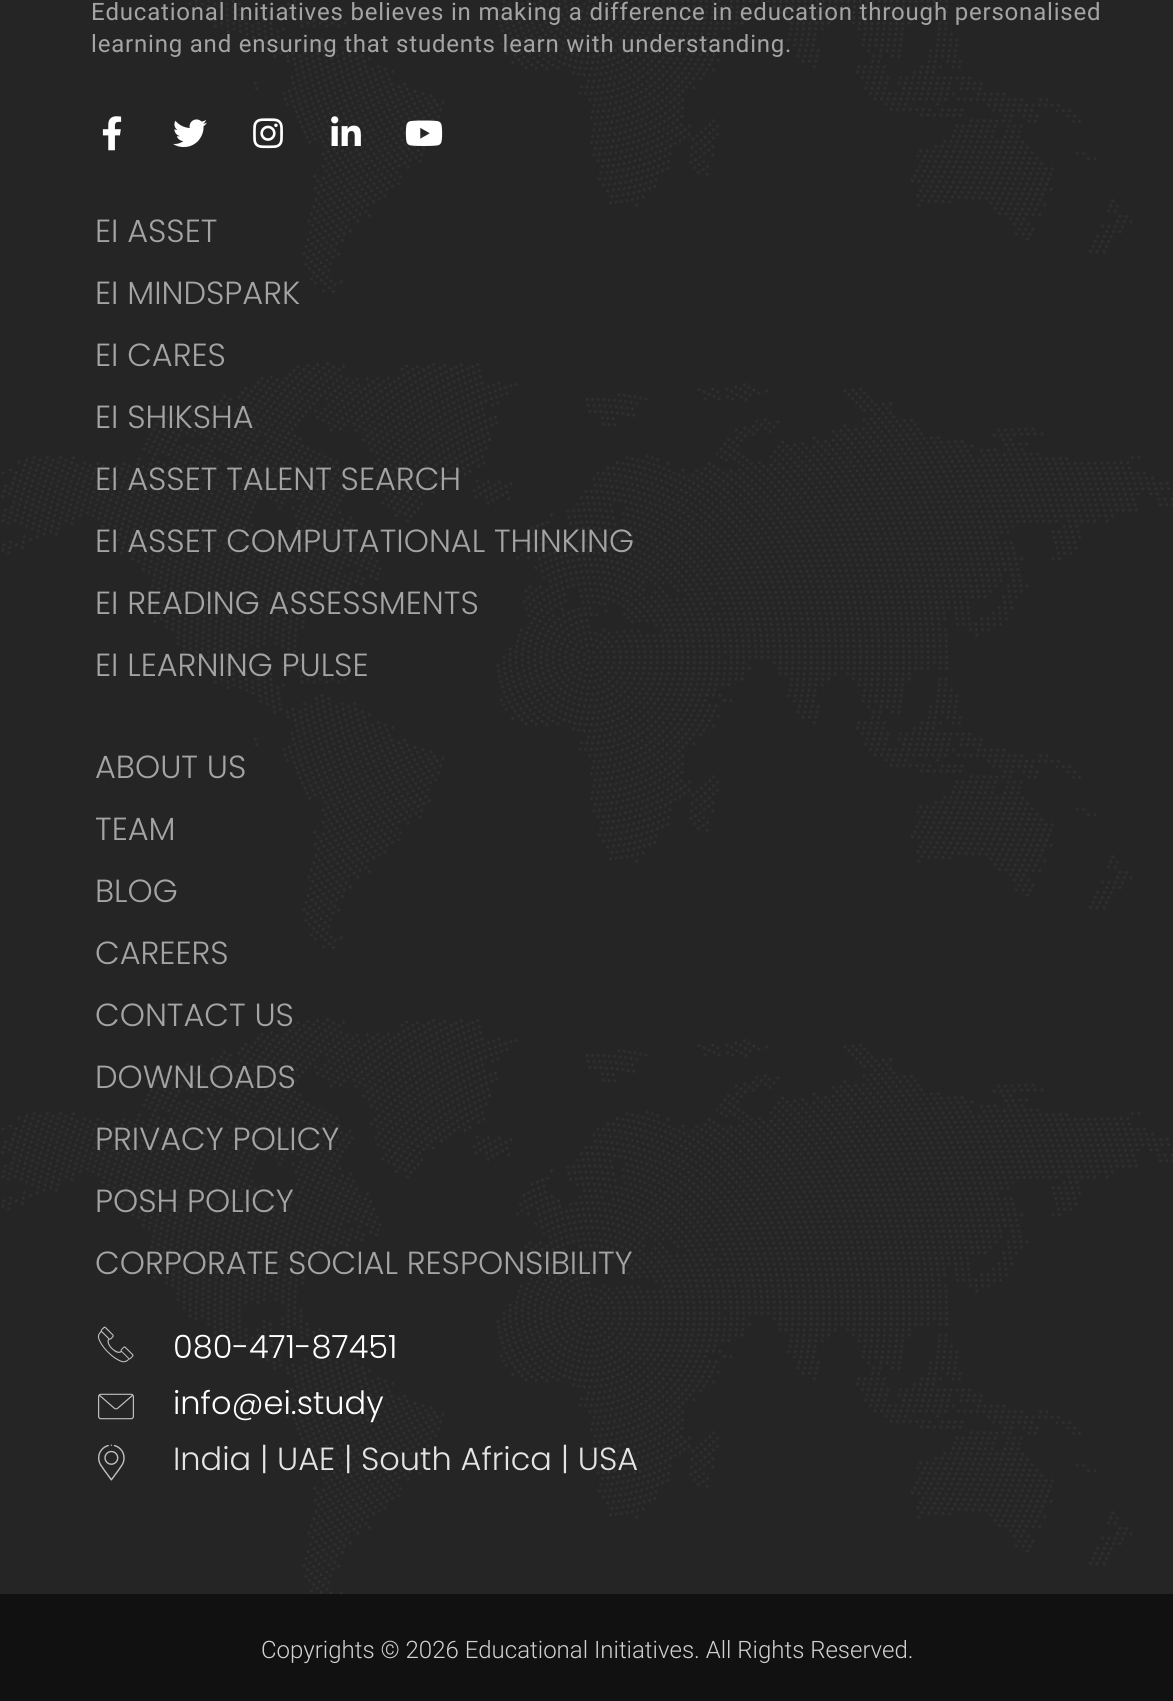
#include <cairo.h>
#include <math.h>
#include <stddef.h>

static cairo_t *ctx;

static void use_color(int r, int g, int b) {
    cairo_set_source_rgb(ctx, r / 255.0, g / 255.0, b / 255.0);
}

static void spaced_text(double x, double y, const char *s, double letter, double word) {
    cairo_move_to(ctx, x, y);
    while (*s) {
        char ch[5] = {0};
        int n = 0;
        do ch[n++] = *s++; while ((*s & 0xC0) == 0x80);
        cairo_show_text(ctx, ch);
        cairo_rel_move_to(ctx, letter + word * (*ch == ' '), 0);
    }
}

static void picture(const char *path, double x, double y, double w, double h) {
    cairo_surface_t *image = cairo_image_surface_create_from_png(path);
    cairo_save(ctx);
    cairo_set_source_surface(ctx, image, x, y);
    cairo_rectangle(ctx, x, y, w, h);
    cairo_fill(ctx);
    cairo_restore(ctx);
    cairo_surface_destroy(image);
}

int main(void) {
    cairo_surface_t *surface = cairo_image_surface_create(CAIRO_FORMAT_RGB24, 1173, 1701);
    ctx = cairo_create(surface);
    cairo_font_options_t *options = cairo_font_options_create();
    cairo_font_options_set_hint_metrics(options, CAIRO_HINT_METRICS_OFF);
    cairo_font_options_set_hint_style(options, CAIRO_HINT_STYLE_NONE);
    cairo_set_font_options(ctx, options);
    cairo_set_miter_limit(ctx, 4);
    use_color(37, 37, 37);
    cairo_paint(ctx);
    picture("img1.png", 1, 0, 1172, 1594);
    cairo_select_font_face(ctx, "Roboto", CAIRO_FONT_SLANT_NORMAL, CAIRO_FONT_WEIGHT_NORMAL);
    cairo_set_font_size(ctx, 24);
    use_color(164, 164, 164);
    spaced_text(91, 20, "Educational Initiatives believes in making a difference in education through personalised", 0.8, 0);
    spaced_text(91, 52, "learning and ensuring that students learn with understanding.", 0.8, 0);
    picture("img2.png", 102, 116, 20, 35);
    picture("img3.png", 173, 119, 34, 29);
    picture("img4.png", 253, 118, 30, 31);
    picture("img5.png", 331, 116, 30, 30);
    picture("img6.png", 405, 120, 38, 26);
    cairo_select_font_face(ctx, "Poppins Light", CAIRO_FONT_SLANT_NORMAL, CAIRO_FONT_WEIGHT_NORMAL);
    cairo_set_font_size(ctx, 32);
    cairo_move_to(ctx, 95, 242);
    cairo_show_text(ctx, "EI ASSET");
    cairo_move_to(ctx, 95, 304);
    cairo_show_text(ctx, "EI MINDSPARK");
    cairo_move_to(ctx, 95, 366);
    cairo_show_text(ctx, "EI CARES");
    cairo_move_to(ctx, 95, 428);
    cairo_show_text(ctx, "EI SHIKSHA");
    cairo_move_to(ctx, 95, 490);
    cairo_show_text(ctx, "EI ASSET TALENT SEARCH");
    cairo_move_to(ctx, 95, 552);
    cairo_show_text(ctx, "EI ASSET COMPUTATIONAL THINKING");
    cairo_move_to(ctx, 95, 614);
    cairo_show_text(ctx, "EI READING ASSESSMENTS");
    cairo_move_to(ctx, 95, 676);
    cairo_show_text(ctx, "EI LEARNING PULSE");
    cairo_move_to(ctx, 95, 778);
    cairo_show_text(ctx, "ABOUT US");
    cairo_move_to(ctx, 95, 840);
    cairo_show_text(ctx, "TEAM");
    cairo_move_to(ctx, 95, 902);
    cairo_show_text(ctx, "BLOG");
    cairo_move_to(ctx, 95, 964);
    cairo_show_text(ctx, "CAREERS");
    cairo_move_to(ctx, 95, 1026);
    cairo_show_text(ctx, "CONTACT US");
    cairo_move_to(ctx, 95, 1088);
    cairo_show_text(ctx, "DOWNLOADS");
    cairo_move_to(ctx, 95, 1150);
    cairo_show_text(ctx, "PRIVACY POLICY");
    cairo_move_to(ctx, 95, 1212);
    cairo_show_text(ctx, "POSH POLICY");
    cairo_move_to(ctx, 95, 1274);
    cairo_show_text(ctx, "CORPORATE SOCIAL RESPONSIBILITY");
    picture("img7.png", 97, 1326, 37, 37);
    use_color(255, 255, 255);
    cairo_move_to(ctx, 173, 1358);
    cairo_show_text(ctx, "080-471-87451");
    picture("img8.png", 98, 1393, 36, 27);
    cairo_move_to(ctx, 173, 1414);
    cairo_show_text(ctx, "info@ei.study");
    picture("img9.png", 98, 1444, 27, 37);
    use_color(228, 228, 228);
    cairo_move_to(ctx, 173, 1470);
    cairo_show_text(ctx, "India | UAE | South Africa | USA");
    use_color(18, 17, 17);
    cairo_rectangle(ctx, 0, 1594, 1173, 107);
    cairo_fill(ctx);
    cairo_select_font_face(ctx, "Roboto Light", CAIRO_FONT_SLANT_NORMAL, CAIRO_FONT_WEIGHT_NORMAL);
    cairo_set_font_size(ctx, 24);
    use_color(209, 209, 209);
    cairo_move_to(ctx, 261, 1658);
    cairo_show_text(ctx, "Copyrights © 2026 Educational Initiatives. All Rights Reserved.");
    cairo_surface_write_to_png(surface, "result.png");
    cairo_font_options_destroy(options);
    cairo_destroy(ctx);
    cairo_surface_destroy(surface);
    return 0;
}
